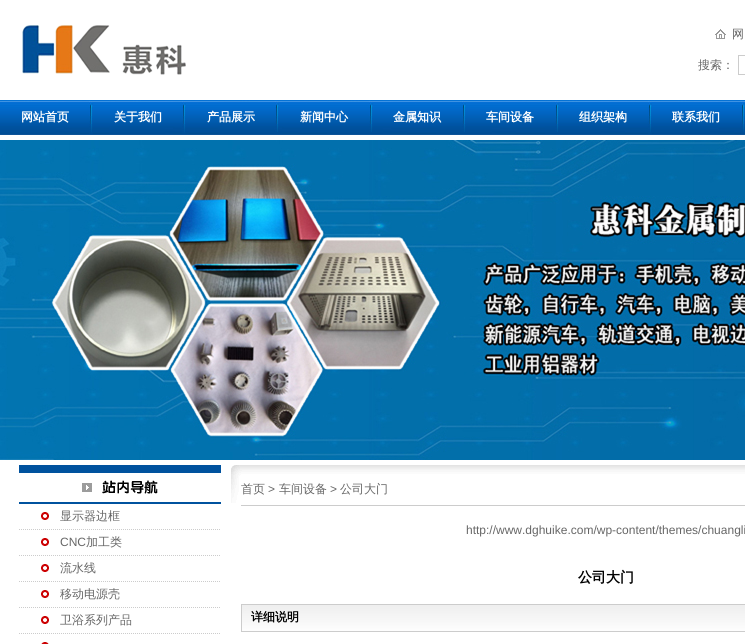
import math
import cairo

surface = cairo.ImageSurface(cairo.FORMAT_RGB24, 745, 644)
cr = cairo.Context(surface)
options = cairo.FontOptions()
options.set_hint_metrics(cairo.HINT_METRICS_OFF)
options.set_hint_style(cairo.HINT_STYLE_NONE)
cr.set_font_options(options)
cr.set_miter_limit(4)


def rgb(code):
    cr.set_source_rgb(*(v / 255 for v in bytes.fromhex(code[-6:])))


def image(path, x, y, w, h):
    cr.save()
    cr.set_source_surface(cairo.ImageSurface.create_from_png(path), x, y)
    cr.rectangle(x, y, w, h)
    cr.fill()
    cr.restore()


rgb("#ffffff")
cr.paint()
image("img/1.png", 22, 25, 164, 50)
image("img/2.png", 715, 29, 11, 10)
cr.rectangle(738.5, 55.5, 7, 19)
rgb("#cccccc")
cr.set_line_width(1)
cr.stroke()
image("img/3.png", 0, 100, 745, 35)
image("img/4.png", 89, 100, 4, 34)
image("img/4.png", 182, 100, 4, 34)
image("img/5.png", 275, 100, 4, 32)
image("img/5.png", 369, 100, 4, 32)
image("img/5.png", 462, 100, 4, 32)
image("img/5.png", 555, 100, 4, 32)
image("img/4.png", 648, 100, 4, 34)
image("img/4.png", 741, 100, 4, 34)
image("img/6.png", 0, 140, 745, 320)
rgb("#00529e")
cr.rectangle(19, 465, 202, 8)
cr.fill()
cr.rectangle(19, 502, 202, 2)
cr.fill()
image("img/7.png", 82, 480, 76, 14)
cr.new_path()
cr.move_to(19, 529.5)
cr.line_to(221, 529.5)
rgb("#cccccc")
cr.set_dash([1, 1])
cr.stroke()
image("img/8.png", 41, 512, 8, 8)
cr.new_path()
cr.move_to(19, 555.5)
cr.line_to(221, 555.5)
cr.stroke()
image("img/8.png", 41, 538, 8, 8)
cr.new_path()
cr.move_to(19, 581.5)
cr.line_to(221, 581.5)
cr.stroke()
image("img/8.png", 41, 564, 8, 8)
cr.new_path()
cr.move_to(19, 607.5)
cr.line_to(221, 607.5)
cr.stroke()
image("img/8.png", 41, 590, 8, 8)
cr.new_path()
cr.move_to(19, 633.5)
cr.line_to(221, 633.5)
cr.stroke()
image("img/8.png", 41, 616, 8, 8)
image("img/9.png", 41, 642, 8, 2)
image("img/10.png", 231, 465, 514, 38)
cr.rectangle(241, 505, 504, 1)
cr.fill()
image("img/11.png", 241, 604, 504, 28)
cr.select_font_face("WenQuanYi Zen Hei Medium")
cr.set_font_size(12)
rgb("#666666")
cr.move_to(732, 38)
cr.show_text("网")
cr.move_to(698, 69)
cr.show_text("搜索：")
cr.select_font_face("WenQuanYi Zen Hei", cairo.FONT_SLANT_NORMAL, cairo.FONT_WEIGHT_BOLD)
rgb("#ffffff")
for x, y, s in [
    (21, 121, "网站首页"),
    (114, 121, "关于我们"),
    (207, 121, "产品展示"),
    (300, 121, "新闻中心"),
    (393, 121, "金属知识"),
    (486, 121, "车间设备"),
    (579, 121, "组织架构"),
    (672, 121, "联系我们"),
]:
    cr.move_to(x, y)
    cr.show_text(s)
cr.select_font_face("WenQuanYi Zen Hei Medium")
rgb("#666666")
cr.move_to(60, 520)
cr.show_text("显示器边框")
cr.select_font_face("Liberation Sans")
cr.move_to(60, 546)
cr.show_text("CNC")
cr.select_font_face("WenQuanYi Zen Hei Medium")
for x, y, s in [
    (86, 546, "加工类"),
    (60, 572, "流水线"),
    (60, 598, "移动电源壳"),
    (60, 624, "卫浴系列产品"),
    (241, 493, "首页"),
]:
    cr.move_to(x, y)
    cr.show_text(s)
cr.select_font_face("Liberation Sans")
cr.move_to(268, 493)
cr.show_text(">")
cr.select_font_face("WenQuanYi Zen Hei Medium")
cr.move_to(279, 493)
cr.show_text("车间设备")
cr.select_font_face("Liberation Sans")
cr.move_to(330, 493)
cr.show_text(">")
cr.select_font_face("WenQuanYi Zen Hei Medium")
cr.move_to(340, 493)
cr.show_text("公司大门")
cr.select_font_face("Liberation Sans")
cr.move_to(466, 534)
cr.show_text("http://www.dghuike.com/wp-content/themes/chuangli")
cr.select_font_face("WenQuanYi Zen Hei", cairo.FONT_SLANT_NORMAL, cairo.FONT_WEIGHT_BOLD)
cr.set_font_size(14)
rgb("#000000")
cr.move_to(578, 582)
cr.show_text("公司大门")
cr.set_font_size(12)
cr.move_to(251, 621)
cr.show_text("详细说明")
surface.write_to_png("page.png")
